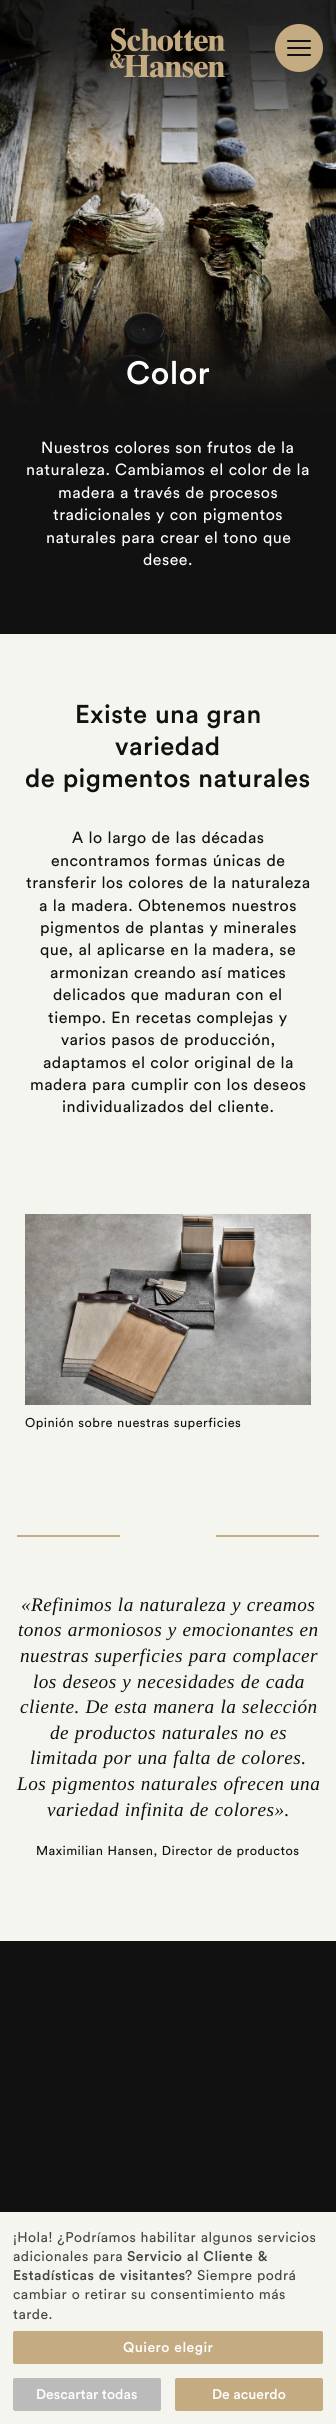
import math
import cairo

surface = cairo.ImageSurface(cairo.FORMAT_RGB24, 336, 2424)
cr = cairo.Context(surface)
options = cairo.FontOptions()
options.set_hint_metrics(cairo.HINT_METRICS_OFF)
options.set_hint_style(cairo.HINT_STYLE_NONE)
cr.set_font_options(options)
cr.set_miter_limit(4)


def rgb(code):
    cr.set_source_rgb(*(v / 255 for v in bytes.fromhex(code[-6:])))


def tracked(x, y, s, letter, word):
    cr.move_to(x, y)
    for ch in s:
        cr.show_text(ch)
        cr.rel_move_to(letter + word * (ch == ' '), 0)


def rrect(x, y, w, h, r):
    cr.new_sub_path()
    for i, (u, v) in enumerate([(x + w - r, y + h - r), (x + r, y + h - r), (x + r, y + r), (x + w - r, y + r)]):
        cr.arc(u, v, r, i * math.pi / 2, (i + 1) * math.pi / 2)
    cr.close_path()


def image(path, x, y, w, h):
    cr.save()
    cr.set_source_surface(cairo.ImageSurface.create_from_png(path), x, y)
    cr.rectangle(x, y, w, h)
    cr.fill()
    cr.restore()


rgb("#111111")
cr.paint()
image("img/2.png", 0, 0, 336, 420)
rgb("#c5ab81")
cr.arc(299, 48, 24, 0, 2 * math.pi)
cr.fill()
rgb("#111111")
rrect(287, 40, 24, 2, 1)
cr.fill()
rrect(287, 47, 24, 2, 1)
cr.fill()
rrect(287, 54, 24, 2, 1)
cr.fill()
image("img/1.png", 110, 28, 115, 50)
rgb("#f5f5f0")
cr.rectangle(0, 634, 336, 1307)
cr.fill()
image("img/3.png", 25, 1214, 286, 191)
for x, y, w, h, color in [
    (17, 1535, 103, 2, "#c5ab81"),
    (216, 1535, 103, 2, "#c5ab81"),
    (0, 2212, 336, 212, "#f5f5f0"),
]:
    rgb(color)
    cr.rectangle(x, y, w, h)
    cr.fill()
rgb("#c5ab81")
rrect(13, 2331, 310, 33, 2)
cr.fill()
rgb("#bbbbbb")
rrect(13, 2378, 148, 33, 2)
cr.fill()
rgb("#c5ab81")
rrect(175, 2378, 148, 33, 2)
cr.fill()
cr.select_font_face("Circular Medium")
cr.set_font_size(32)
rgb("#ffffff")
tracked(126, 384, "Color", 0.45, 0)
cr.select_font_face("Circular")
cr.set_font_size(16)
tracked(41, 453, "Nuestros colores son frutos de la", 0.45, 0.5)
tracked(26, 475, "naturaleza.", 0.45, 0)
tracked(115, 475, "Cambiamos el color de la", 0.45, 0.5)
tracked(58, 498, "madera a través de procesos", 0.45, 0.5)
tracked(53, 520, "tradicionales", 0.45, 0)
tracked(156, 520, "y con pigmentos", 0.45, 0.5)
tracked(46, 543, "naturales para crear el tono que", 0.45, 0.5)
tracked(143, 565, "desee.", 0.45, 0)
cr.select_font_face("Circular Medium")
cr.set_font_size(25.6)
rgb("#111111")
tracked(75, 723, "Existe una gran", 0.45, 0.5)
tracked(115, 755, "variedad", 0.45, 0)
tracked(25, 787, "de pigmentos naturales", 0.45, 0.5)
cr.select_font_face("Circular")
cr.set_font_size(16)
for x, y, s in [
    (72, 843, "A lo largo de las décadas"),
    (51, 866, "encontramos formas únicas de"),
    (26, 888, "transferir los colores de la naturaleza"),
    (39, 911, "a la madera. Obtenemos nuestros"),
    (40, 933, "pigmentos de plantas y minerales"),
    (40, 955, "que, al aplicarse en la madera, se"),
    (50, 978, "armonizan creando así matices"),
    (53, 1000, "delicados que maduran con el"),
    (48, 1023, "tiempo. En recetas complejas y"),
    (61, 1045, "varios pasos de producción,"),
    (43, 1068, "adaptamos el color original de la"),
    (30, 1090, "madera para cumplir con los deseos"),
    (62, 1112, "individualizados del cliente."),
]:
    tracked(x, y, s, 0.45, 0.5)
cr.set_font_size(12.8)
tracked(25, 1427, "Opinión sobre nuestras superficies", 0.45, 0.5)
cr.select_font_face("Liberation Serif", cairo.FONT_SLANT_ITALIC)
cr.set_font_size(19.25)
for x, y, s in [
    (21, 1611, "«Refinimos la naturaleza y creamos"),
    (18, 1636, "tonos armoniosos y emocionantes en"),
    (20, 1662, "nuestras superficies para complacer"),
    (33, 1688, "los deseos y necesidades de cada"),
    (20, 1713, "cliente. De esta manera la selección"),
    (50, 1739, "de productos naturales no es"),
    (30, 1764, "limitada por una falta de colores."),
    (17, 1790, "Los pigmentos naturales ofrecen una"),
    (47, 1816, "variedad infinita de colores»."),
]:
    tracked(x, y, s, 0.45, 0.5)
cr.select_font_face("Circular")
cr.set_font_size(12.8)
tracked(36, 1855, "Maximilian Hansen, Director de productos", 0.45, 0.5)
cr.set_font_size(14)
rgb("#444444")
tracked(13, 2242, "¡Hola! ¿Podríamos habilitar algunos servicios", 0.45, 0.5)
tracked(13, 2261, "adicionales para", 0.45, 0.5)
cr.select_font_face("Circular Medium")
tracked(127, 2261, "Servicio al Cliente &", 0.45, 0.5)
tracked(13, 2280, "Estadísticas de visitantes", 0.45, 0.5)
cr.select_font_face("Circular")
tracked(185, 2280, "? Siempre podrá", 0.45, 0.5)
tracked(13, 2299, "cambiar o retirar su consentimiento más", 0.45, 0.5)
tracked(13, 2319, "tarde.", 0.45, 0)
cr.select_font_face("Circular Medium")
rgb("#ffffff")
tracked(123, 2352, "Quiero elegir", 0.45, 0.5)
cr.move_to(36, 2399)
cr.show_text("Descartar todas")
cr.move_to(212, 2399)
cr.show_text("De acuerdo")
surface.write_to_png("page.png")
